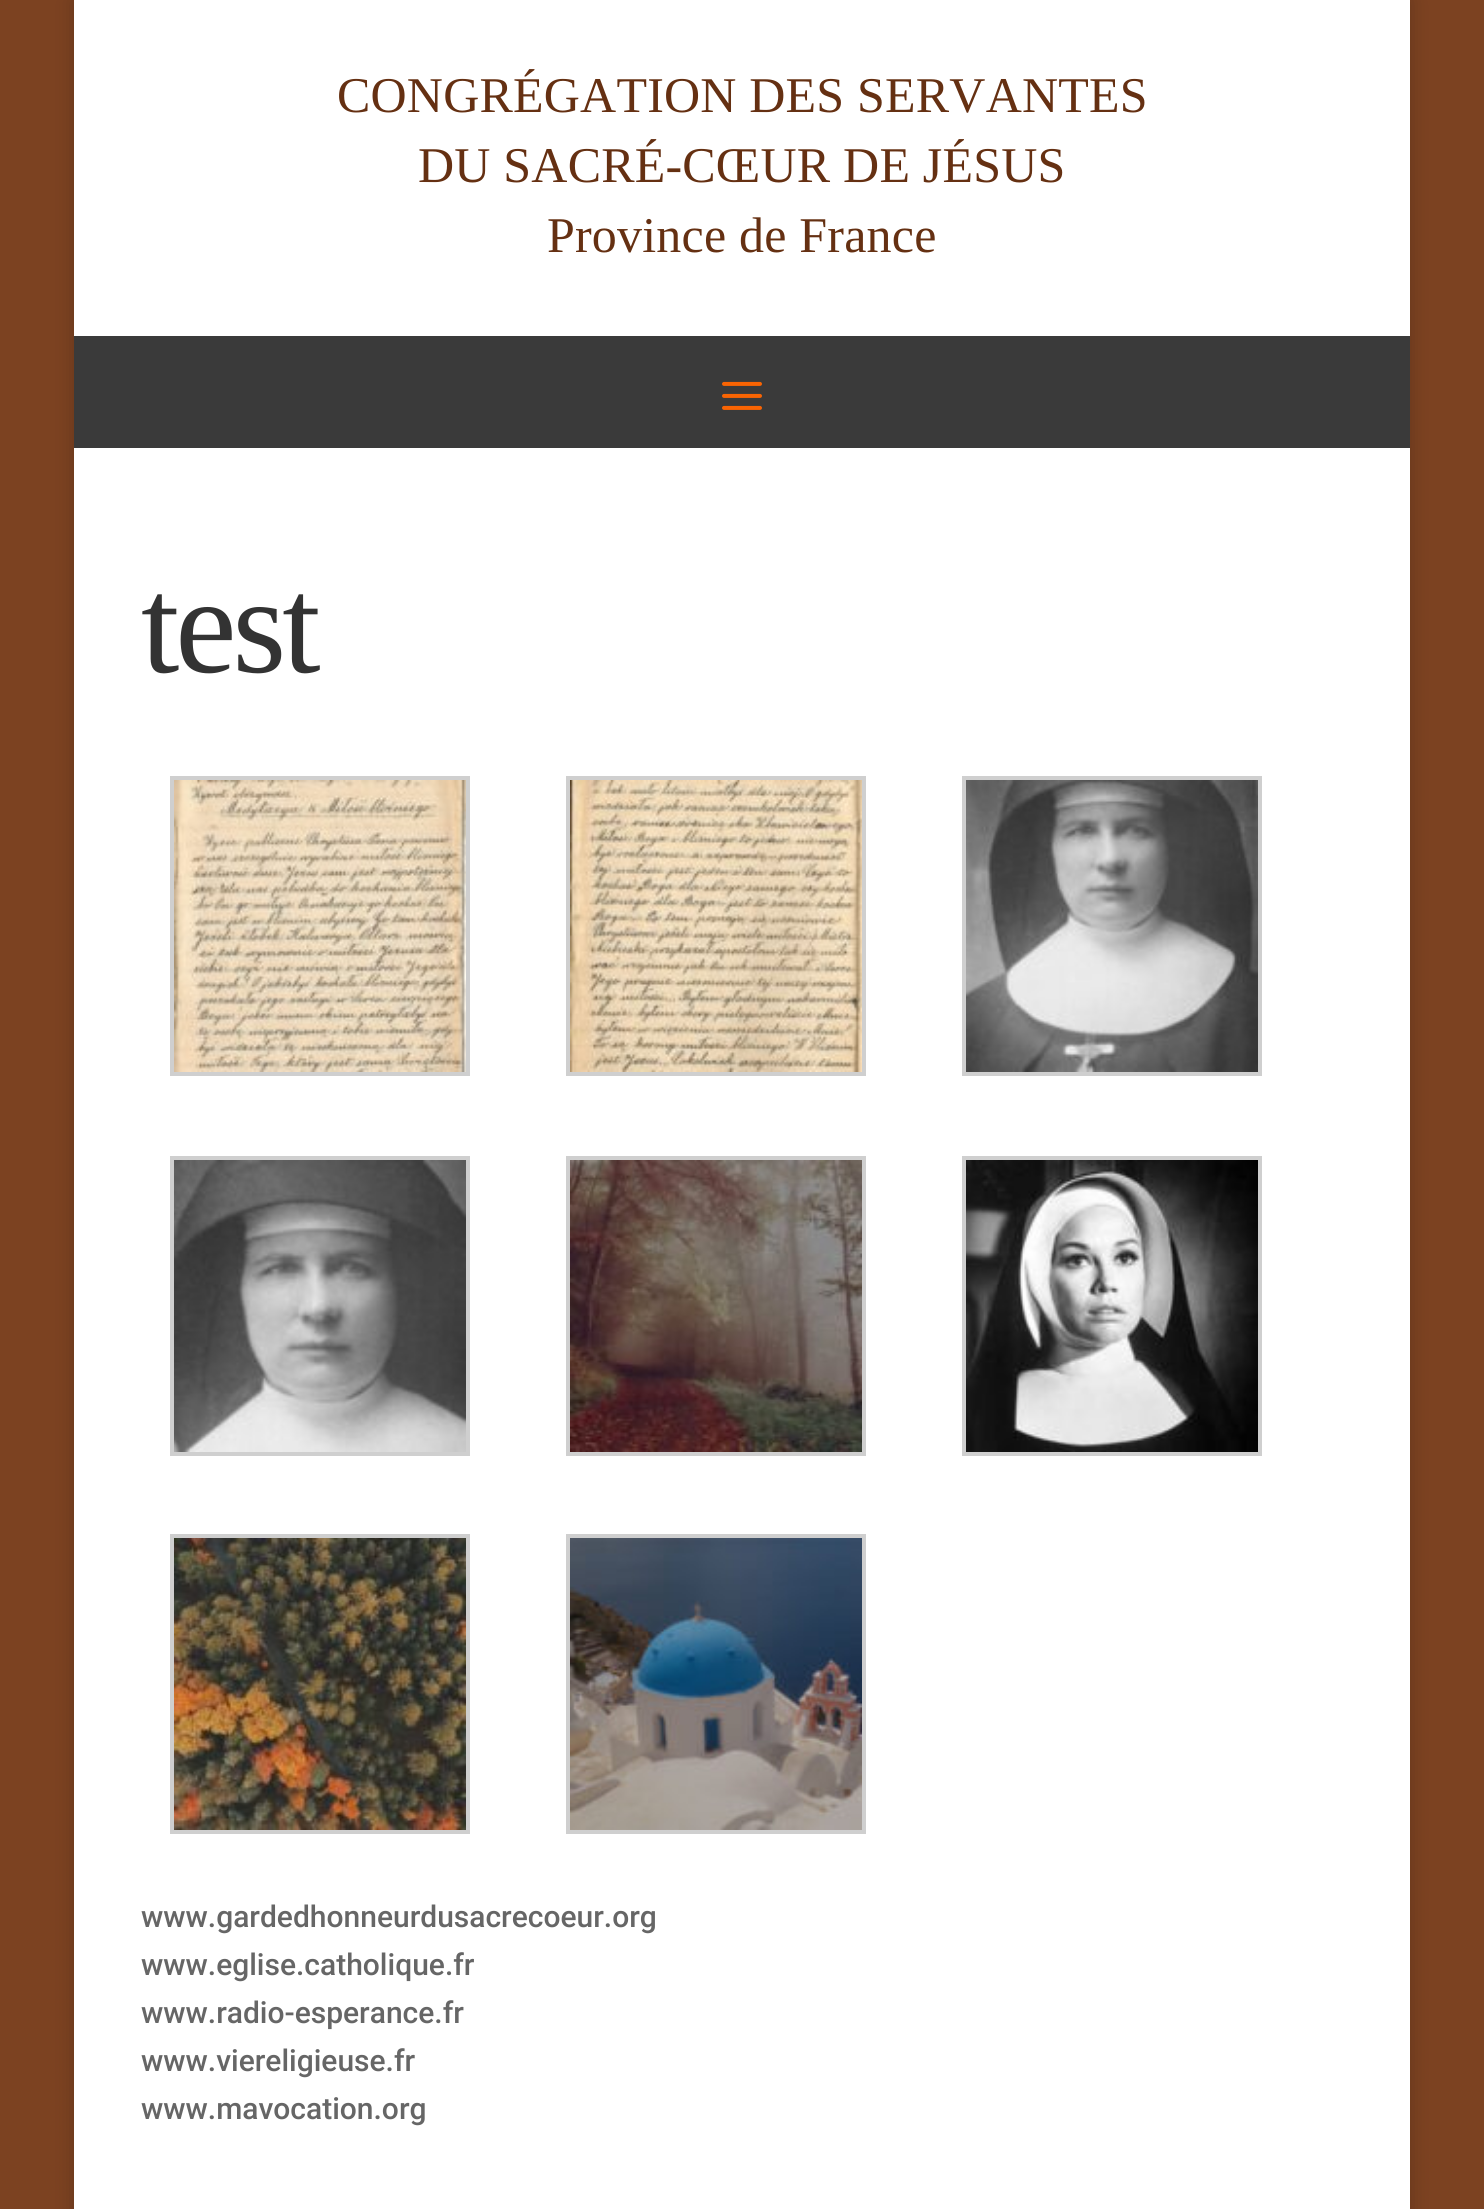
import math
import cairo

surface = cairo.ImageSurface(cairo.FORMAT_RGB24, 1484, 2209)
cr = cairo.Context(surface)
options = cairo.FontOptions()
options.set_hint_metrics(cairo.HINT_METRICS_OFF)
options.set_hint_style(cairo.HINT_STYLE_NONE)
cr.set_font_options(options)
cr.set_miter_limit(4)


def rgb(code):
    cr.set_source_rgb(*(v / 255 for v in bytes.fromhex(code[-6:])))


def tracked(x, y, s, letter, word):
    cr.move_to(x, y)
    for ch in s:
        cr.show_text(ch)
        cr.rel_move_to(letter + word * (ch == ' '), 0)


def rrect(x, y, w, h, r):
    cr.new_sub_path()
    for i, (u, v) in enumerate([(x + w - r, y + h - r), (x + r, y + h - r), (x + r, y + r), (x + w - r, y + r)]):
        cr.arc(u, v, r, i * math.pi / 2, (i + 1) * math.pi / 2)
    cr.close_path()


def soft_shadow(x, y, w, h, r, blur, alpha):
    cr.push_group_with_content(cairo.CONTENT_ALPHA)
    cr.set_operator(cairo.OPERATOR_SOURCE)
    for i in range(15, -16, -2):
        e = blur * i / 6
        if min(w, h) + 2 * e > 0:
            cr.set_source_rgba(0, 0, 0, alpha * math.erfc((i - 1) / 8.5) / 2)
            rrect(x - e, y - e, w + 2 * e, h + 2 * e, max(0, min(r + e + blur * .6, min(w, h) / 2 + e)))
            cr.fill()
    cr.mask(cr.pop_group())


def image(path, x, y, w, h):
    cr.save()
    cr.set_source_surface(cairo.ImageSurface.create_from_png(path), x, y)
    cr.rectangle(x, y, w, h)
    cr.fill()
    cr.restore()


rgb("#7c4221")
cr.paint()
rgb("#000000")
soft_shadow(74, 0, 1336, 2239, 0, 10, 0.2)
rgb("#ffffff")
cr.rectangle(74, 0, 1336, 336)
cr.fill()
rgb("#3a3a3a")
cr.rectangle(74, 336, 1336, 112)
cr.fill()
image("img/1.png", 722, 381, 40, 29)
rgb("#ffffff")
cr.rectangle(74, 448, 1336, 1761)
cr.fill()
cr.rectangle(172, 778, 296, 296)
rgb("#cfcfcf")
cr.set_line_width(4)
cr.stroke()
image("img/2.png", 174, 780, 292, 292)
cr.rectangle(568, 778, 296, 296)
cr.stroke()
image("img/3.png", 570, 780, 292, 292)
cr.rectangle(964, 778, 296, 296)
cr.stroke()
image("img/4.png", 966, 780, 292, 292)
cr.rectangle(172, 1158, 296, 296)
cr.stroke()
image("img/5.png", 174, 1160, 292, 292)
cr.rectangle(568, 1158, 296, 296)
cr.stroke()
image("img/6.png", 570, 1160, 292, 292)
cr.rectangle(964, 1158, 296, 296)
cr.stroke()
image("img/7.png", 966, 1160, 292, 292)
cr.rectangle(172, 1536, 296, 296)
cr.stroke()
image("img/8.png", 174, 1538, 292, 292)
cr.rectangle(568, 1536, 296, 296)
cr.stroke()
image("img/9.png", 570, 1538, 292, 292)
cr.select_font_face("Liberation Serif")
cr.set_font_size(50)
rgb("#653012")
for x, y, s in [
    (337, 112, "CONGRÉGATION DES SERVANTES"),
    (418, 182, "DU SACRÉ-CŒUR DE JÉSUS"),
    (547, 252, "Province de France"),
]:
    tracked(x, y, s, 0.2, 0)
cr.set_font_size(138)
rgb("#333333")
tracked(141, 672, "test", -4, 0)
cr.select_font_face("Roboto Medium")
cr.set_font_size(30)
rgb("#666666")
for x, y, s in [
    (141, 1927, "www.gardedhonneurdusacrecoeur.org"),
    (141, 1975, "www.eglise.catholique.fr"),
    (141, 2023, "www.radio-esperance.fr"),
    (141, 2071, "www.viereligieuse.fr"),
    (141, 2119, "www.mavocation.org"),
]:
    cr.move_to(x, y)
    cr.show_text(s)
surface.write_to_png("page.png")
